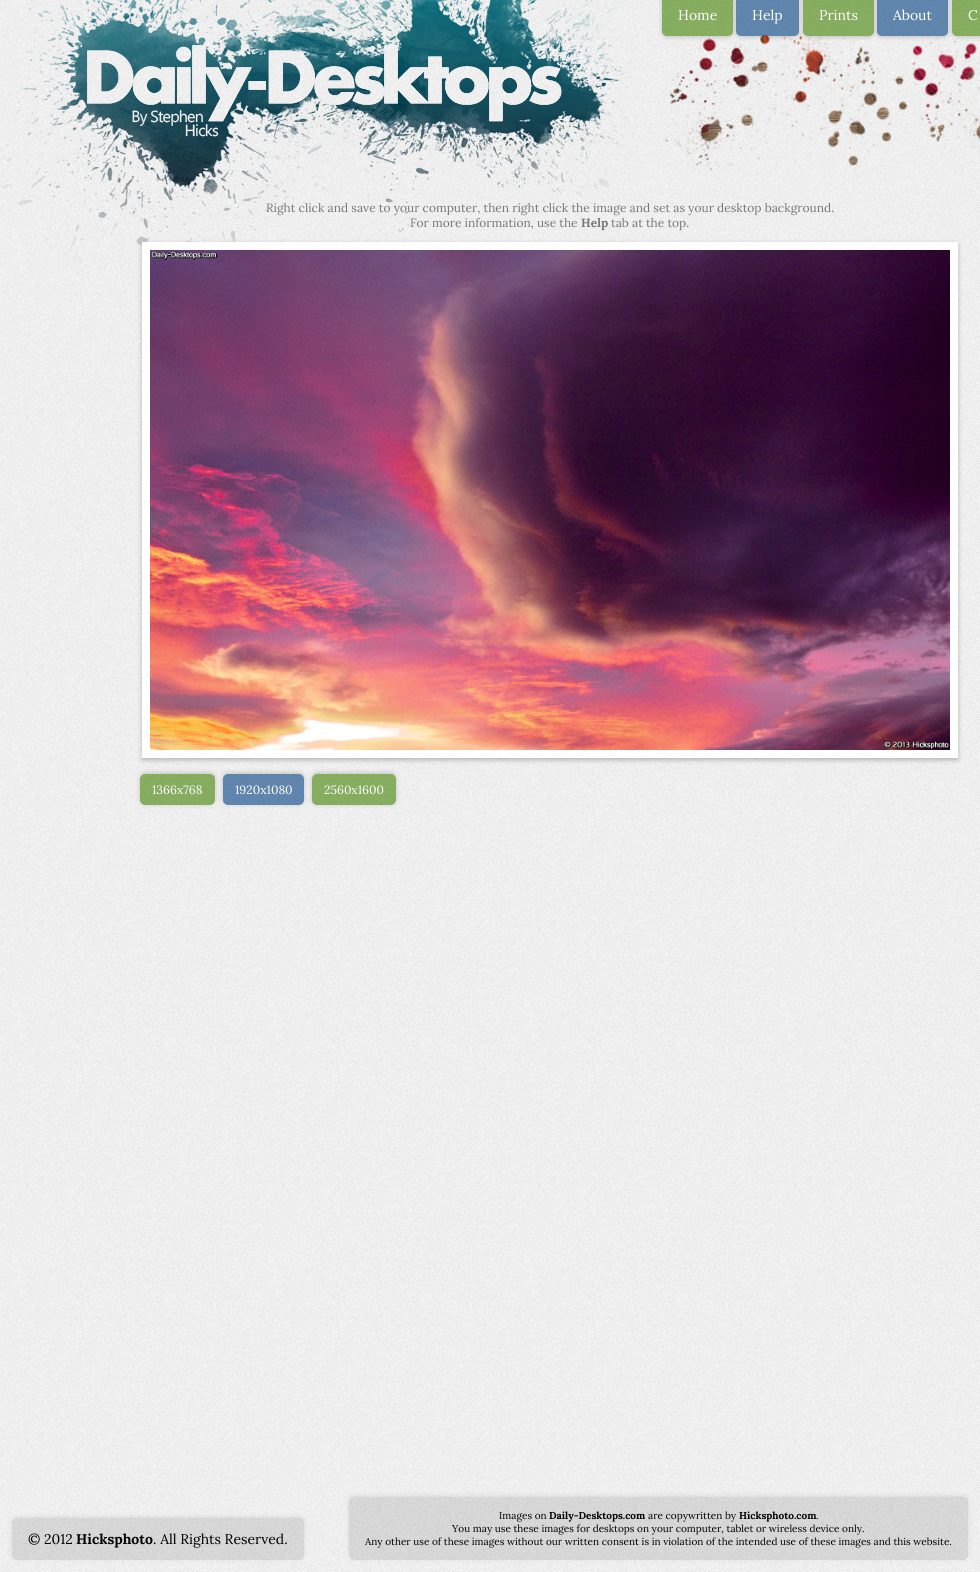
import math
import cairo

surface = cairo.ImageSurface(cairo.FORMAT_RGB24, 980, 1572)
cr = cairo.Context(surface)
options = cairo.FontOptions()
options.set_hint_metrics(cairo.HINT_METRICS_OFF)
options.set_hint_style(cairo.HINT_STYLE_NONE)
cr.set_font_options(options)
cr.set_miter_limit(4)


def rgb(code):
    cr.set_source_rgb(*(v / 255 for v in bytes.fromhex(code[-6:])))


def rrect(x, y, w, h, r):
    cr.new_sub_path()
    for i, (u, v) in enumerate([(x + w - r, y + h - r), (x + r, y + h - r), (x + r, y + r), (x + w - r, y + r)]):
        cr.arc(u, v, r, i * math.pi / 2, (i + 1) * math.pi / 2)
    cr.close_path()


def soft_shadow(x, y, w, h, r, blur, alpha):
    cr.push_group_with_content(cairo.CONTENT_ALPHA)
    cr.set_operator(cairo.OPERATOR_SOURCE)
    for i in range(15, -16, -2):
        e = blur * i / 6
        if min(w, h) + 2 * e > 0:
            cr.set_source_rgba(0, 0, 0, alpha * math.erfc((i - 1) / 8.5) / 2)
            rrect(x - e, y - e, w + 2 * e, h + 2 * e, max(0, min(r + e + blur * .6, min(w, h) / 2 + e)))
            cr.fill()
    cr.mask(cr.pop_group())


def image(path, x, y, w, h):
    cr.save()
    cr.set_source_surface(cairo.ImageSurface.create_from_png(path), x, y)
    cr.rectangle(x, y, w, h)
    cr.fill()
    cr.restore()


rgb("#ffffff")
cr.paint()
image("img/1.png", 0, 0, 980, 1572)
image("img/2.png", 2, 0, 636, 280)
image("img/3.png", 663, 35, 317, 148)
cr.save()
cr.set_fill_rule(cairo.FILL_RULE_EVEN_ODD)
cr.new_path()
cr.move_to(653, 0)
cr.line_to(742, 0)
cr.line_to(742, 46)
cr.line_to(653, 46)
cr.close_path()
cr.move_to(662, -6)
cr.line_to(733, -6)
cr.line_to(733, 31)
cr.curve_to(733, 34, 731, 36, 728, 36)
cr.line_to(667, 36)
cr.curve_to(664, 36, 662, 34, 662, 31)
cr.close_path()
cr.clip()
rgb("#000000")
soft_shadow(662, -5, 71, 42, 5, 2.5, 0.2)
cr.restore()
cr.set_source_rgba(0.251, 0.502, 0, 0.6)
cr.new_path()
cr.move_to(662, -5)
cr.line_to(733, -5)
cr.line_to(733, 31)
cr.curve_to(733, 34, 731, 36, 728, 36)
cr.line_to(667, 36)
cr.curve_to(664, 36, 662, 34, 662, 31)
cr.close_path()
cr.fill()
cr.save()
cr.set_fill_rule(cairo.FILL_RULE_EVEN_ODD)
cr.new_path()
cr.move_to(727, 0)
cr.line_to(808, 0)
cr.line_to(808, 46)
cr.line_to(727, 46)
cr.close_path()
cr.move_to(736, -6)
cr.line_to(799, -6)
cr.line_to(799, 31)
cr.curve_to(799, 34, 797, 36, 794, 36)
cr.line_to(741, 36)
cr.curve_to(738, 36, 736, 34, 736, 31)
cr.close_path()
cr.clip()
rgb("#000000")
soft_shadow(736, -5, 63, 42, 5, 2.5, 0.2)
cr.restore()
cr.set_source_rgba(0, 0.251, 0.502, 0.6)
cr.new_path()
cr.move_to(736, -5)
cr.line_to(799, -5)
cr.line_to(799, 31)
cr.curve_to(799, 34, 797, 36, 794, 36)
cr.line_to(741, 36)
cr.curve_to(738, 36, 736, 34, 736, 31)
cr.close_path()
cr.fill()
cr.save()
cr.set_fill_rule(cairo.FILL_RULE_EVEN_ODD)
cr.new_path()
cr.move_to(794, 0)
cr.line_to(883, 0)
cr.line_to(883, 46)
cr.line_to(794, 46)
cr.close_path()
cr.move_to(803, -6)
cr.line_to(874, -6)
cr.line_to(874, 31)
cr.curve_to(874, 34, 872, 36, 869, 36)
cr.line_to(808, 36)
cr.curve_to(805, 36, 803, 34, 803, 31)
cr.close_path()
cr.clip()
rgb("#000000")
soft_shadow(803, -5, 71, 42, 5, 2.5, 0.2)
cr.restore()
cr.set_source_rgba(0.251, 0.502, 0, 0.6)
cr.new_path()
cr.move_to(803, -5)
cr.line_to(874, -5)
cr.line_to(874, 31)
cr.curve_to(874, 34, 872, 36, 869, 36)
cr.line_to(808, 36)
cr.curve_to(805, 36, 803, 34, 803, 31)
cr.close_path()
cr.fill()
cr.save()
cr.set_fill_rule(cairo.FILL_RULE_EVEN_ODD)
cr.new_path()
cr.move_to(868, 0)
cr.line_to(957, 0)
cr.line_to(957, 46)
cr.line_to(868, 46)
cr.close_path()
cr.move_to(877, -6)
cr.line_to(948, -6)
cr.line_to(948, 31)
cr.curve_to(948, 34, 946, 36, 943, 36)
cr.line_to(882, 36)
cr.curve_to(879, 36, 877, 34, 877, 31)
cr.close_path()
cr.clip()
rgb("#000000")
soft_shadow(877, -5, 71, 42, 5, 2.5, 0.2)
cr.restore()
cr.set_source_rgba(0, 0.251, 0.502, 0.6)
cr.new_path()
cr.move_to(877, -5)
cr.line_to(948, -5)
cr.line_to(948, 31)
cr.curve_to(948, 34, 946, 36, 943, 36)
cr.line_to(882, 36)
cr.curve_to(879, 36, 877, 34, 877, 31)
cr.close_path()
cr.fill()
cr.save()
cr.set_fill_rule(cairo.FILL_RULE_EVEN_ODD)
cr.new_path()
cr.move_to(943, 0)
cr.line_to(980, 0)
cr.line_to(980, 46)
cr.line_to(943, 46)
cr.close_path()
cr.move_to(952, -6)
cr.line_to(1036, -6)
cr.line_to(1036, 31)
cr.curve_to(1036, 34, 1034, 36, 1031, 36)
cr.line_to(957, 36)
cr.curve_to(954, 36, 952, 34, 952, 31)
cr.close_path()
cr.clip()
rgb("#000000")
soft_shadow(952, -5, 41, 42, 5, 2.5, 0.2)
cr.restore()
cr.set_source_rgba(0.251, 0.502, 0, 0.6)
cr.new_path()
cr.move_to(952, -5)
cr.line_to(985, -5)
cr.line_to(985, 31)
cr.curve_to(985, 34, 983, 36, 980, 36)
cr.line_to(957, 36)
cr.curve_to(954, 36, 952, 34, 952, 31)
cr.close_path()
cr.fill()
rgb("#000000")
soft_shadow(142, 244, 816, 516, 0, 2.5, 0.25)
cr.rectangle(146, 246, 808, 508)
rgb("#ffffff")
cr.set_line_width(8)
cr.stroke()
image("img/4.png", 150, 250, 800, 500)
cr.save()
cr.set_fill_rule(cairo.FILL_RULE_EVEN_ODD)
cr.new_path()
cr.move_to(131, 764)
cr.line_to(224, 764)
cr.line_to(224, 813)
cr.line_to(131, 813)
cr.close_path()
cr.move_to(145, 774)
cr.line_to(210, 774)
cr.curve_to(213, 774, 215, 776, 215, 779)
cr.line_to(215, 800)
cr.curve_to(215, 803, 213, 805, 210, 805)
cr.line_to(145, 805)
cr.curve_to(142, 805, 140, 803, 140, 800)
cr.line_to(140, 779)
cr.curve_to(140, 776, 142, 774, 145, 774)
cr.close_path()
cr.clip()
rgb("#000000")
soft_shadow(140, 773, 75, 31, 5, 2.5, 0.2)
cr.restore()
cr.set_source_rgba(0.251, 0.502, 0, 0.6)
rrect(140, 774, 75, 31, 5)
cr.fill()
cr.save()
cr.set_fill_rule(cairo.FILL_RULE_EVEN_ODD)
cr.new_path()
cr.move_to(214, 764)
cr.line_to(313, 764)
cr.line_to(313, 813)
cr.line_to(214, 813)
cr.close_path()
cr.move_to(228, 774)
cr.line_to(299, 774)
cr.curve_to(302, 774, 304, 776, 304, 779)
cr.line_to(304, 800)
cr.curve_to(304, 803, 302, 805, 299, 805)
cr.line_to(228, 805)
cr.curve_to(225, 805, 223, 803, 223, 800)
cr.line_to(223, 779)
cr.curve_to(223, 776, 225, 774, 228, 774)
cr.close_path()
cr.clip()
rgb("#000000")
soft_shadow(223, 773, 81, 31, 5, 2.5, 0.2)
cr.restore()
cr.set_source_rgba(0, 0.251, 0.502, 0.6)
rrect(223, 774, 81, 31, 5)
cr.fill()
cr.save()
cr.set_fill_rule(cairo.FILL_RULE_EVEN_ODD)
cr.new_path()
cr.move_to(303, 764)
cr.line_to(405, 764)
cr.line_to(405, 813)
cr.line_to(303, 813)
cr.close_path()
cr.move_to(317, 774)
cr.line_to(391, 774)
cr.curve_to(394, 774, 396, 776, 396, 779)
cr.line_to(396, 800)
cr.curve_to(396, 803, 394, 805, 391, 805)
cr.line_to(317, 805)
cr.curve_to(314, 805, 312, 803, 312, 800)
cr.line_to(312, 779)
cr.curve_to(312, 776, 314, 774, 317, 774)
cr.close_path()
cr.clip()
rgb("#000000")
soft_shadow(312, 773, 84, 31, 5, 2.5, 0.2)
cr.restore()
cr.set_source_rgba(0.251, 0.502, 0, 0.6)
rrect(312, 774, 84, 31, 5)
cr.fill()
rgb("#000000")
soft_shadow(12, 1517, 292, 42, 5, 2.5, 0.1)
image("img/5.png", 12, 1518, 292, 42)
soft_shadow(349, 1496, 619, 63, 5, 2.5, 0.1)
image("img/6.png", 349, 1497, 619, 63)
cr.select_font_face("Lora")
cr.set_font_size(14)
rgb("#ffffff")
for x, y, s in [
    (678, 20, "Home"),
    (752, 20, "Help"),
    (819, 20, "Prints"),
    (893, 20, "About"),
    (968, 20, "C"),
]:
    cr.move_to(x, y)
    cr.show_text(s)
cr.set_font_size(12)
rgb("#777777")
cr.move_to(266, 212)
cr.show_text("Right click and save to your computer, then right click the image and set as your desktop background.")
cr.move_to(410, 227)
cr.show_text("For more information, use the")
cr.select_font_face("Lora", cairo.FONT_SLANT_NORMAL, cairo.FONT_WEIGHT_BOLD)
cr.move_to(581, 227)
cr.show_text("Help")
cr.select_font_face("Lora")
cr.move_to(611, 227)
cr.show_text("tab at the top.")
rgb("#ffffff")
for x, y, s in [
    (152, 794, "1366x768"),
    (235, 794, "1920x1080"),
    (324, 794, "2560x1600"),
]:
    cr.move_to(x, y)
    cr.show_text(s)
cr.set_font_size(14)
rgb("#000000")
cr.move_to(28, 1544)
cr.show_text("© 2012")
cr.select_font_face("Lora", cairo.FONT_SLANT_NORMAL, cairo.FONT_WEIGHT_BOLD)
cr.move_to(76, 1544)
cr.show_text("Hicksphoto")
cr.select_font_face("Lora")
cr.move_to(153, 1544)
cr.show_text(". All Rights Reserved.")
cr.set_font_size(10)
cr.move_to(499, 1519)
cr.show_text("Images on")
cr.select_font_face("Lora", cairo.FONT_SLANT_NORMAL, cairo.FONT_WEIGHT_BOLD)
cr.move_to(549, 1519)
cr.show_text("Daily-Desktops.com")
cr.select_font_face("Lora")
cr.move_to(648, 1519)
cr.show_text("are copywritten by")
cr.select_font_face("Lora", cairo.FONT_SLANT_NORMAL, cairo.FONT_WEIGHT_BOLD)
cr.move_to(739, 1519)
cr.show_text("Hicksphoto.com")
cr.select_font_face("Lora")
for x, y, s in [
    (816, 1519, "."),
    (452, 1532, "You may use these images for desktops on your computer, tablet or wireless device only."),
    (365, 1545, "Any other use of these images without our written consent is in violation of the intended use of these images and this website."),
]:
    cr.move_to(x, y)
    cr.show_text(s)
surface.write_to_png("page.png")
